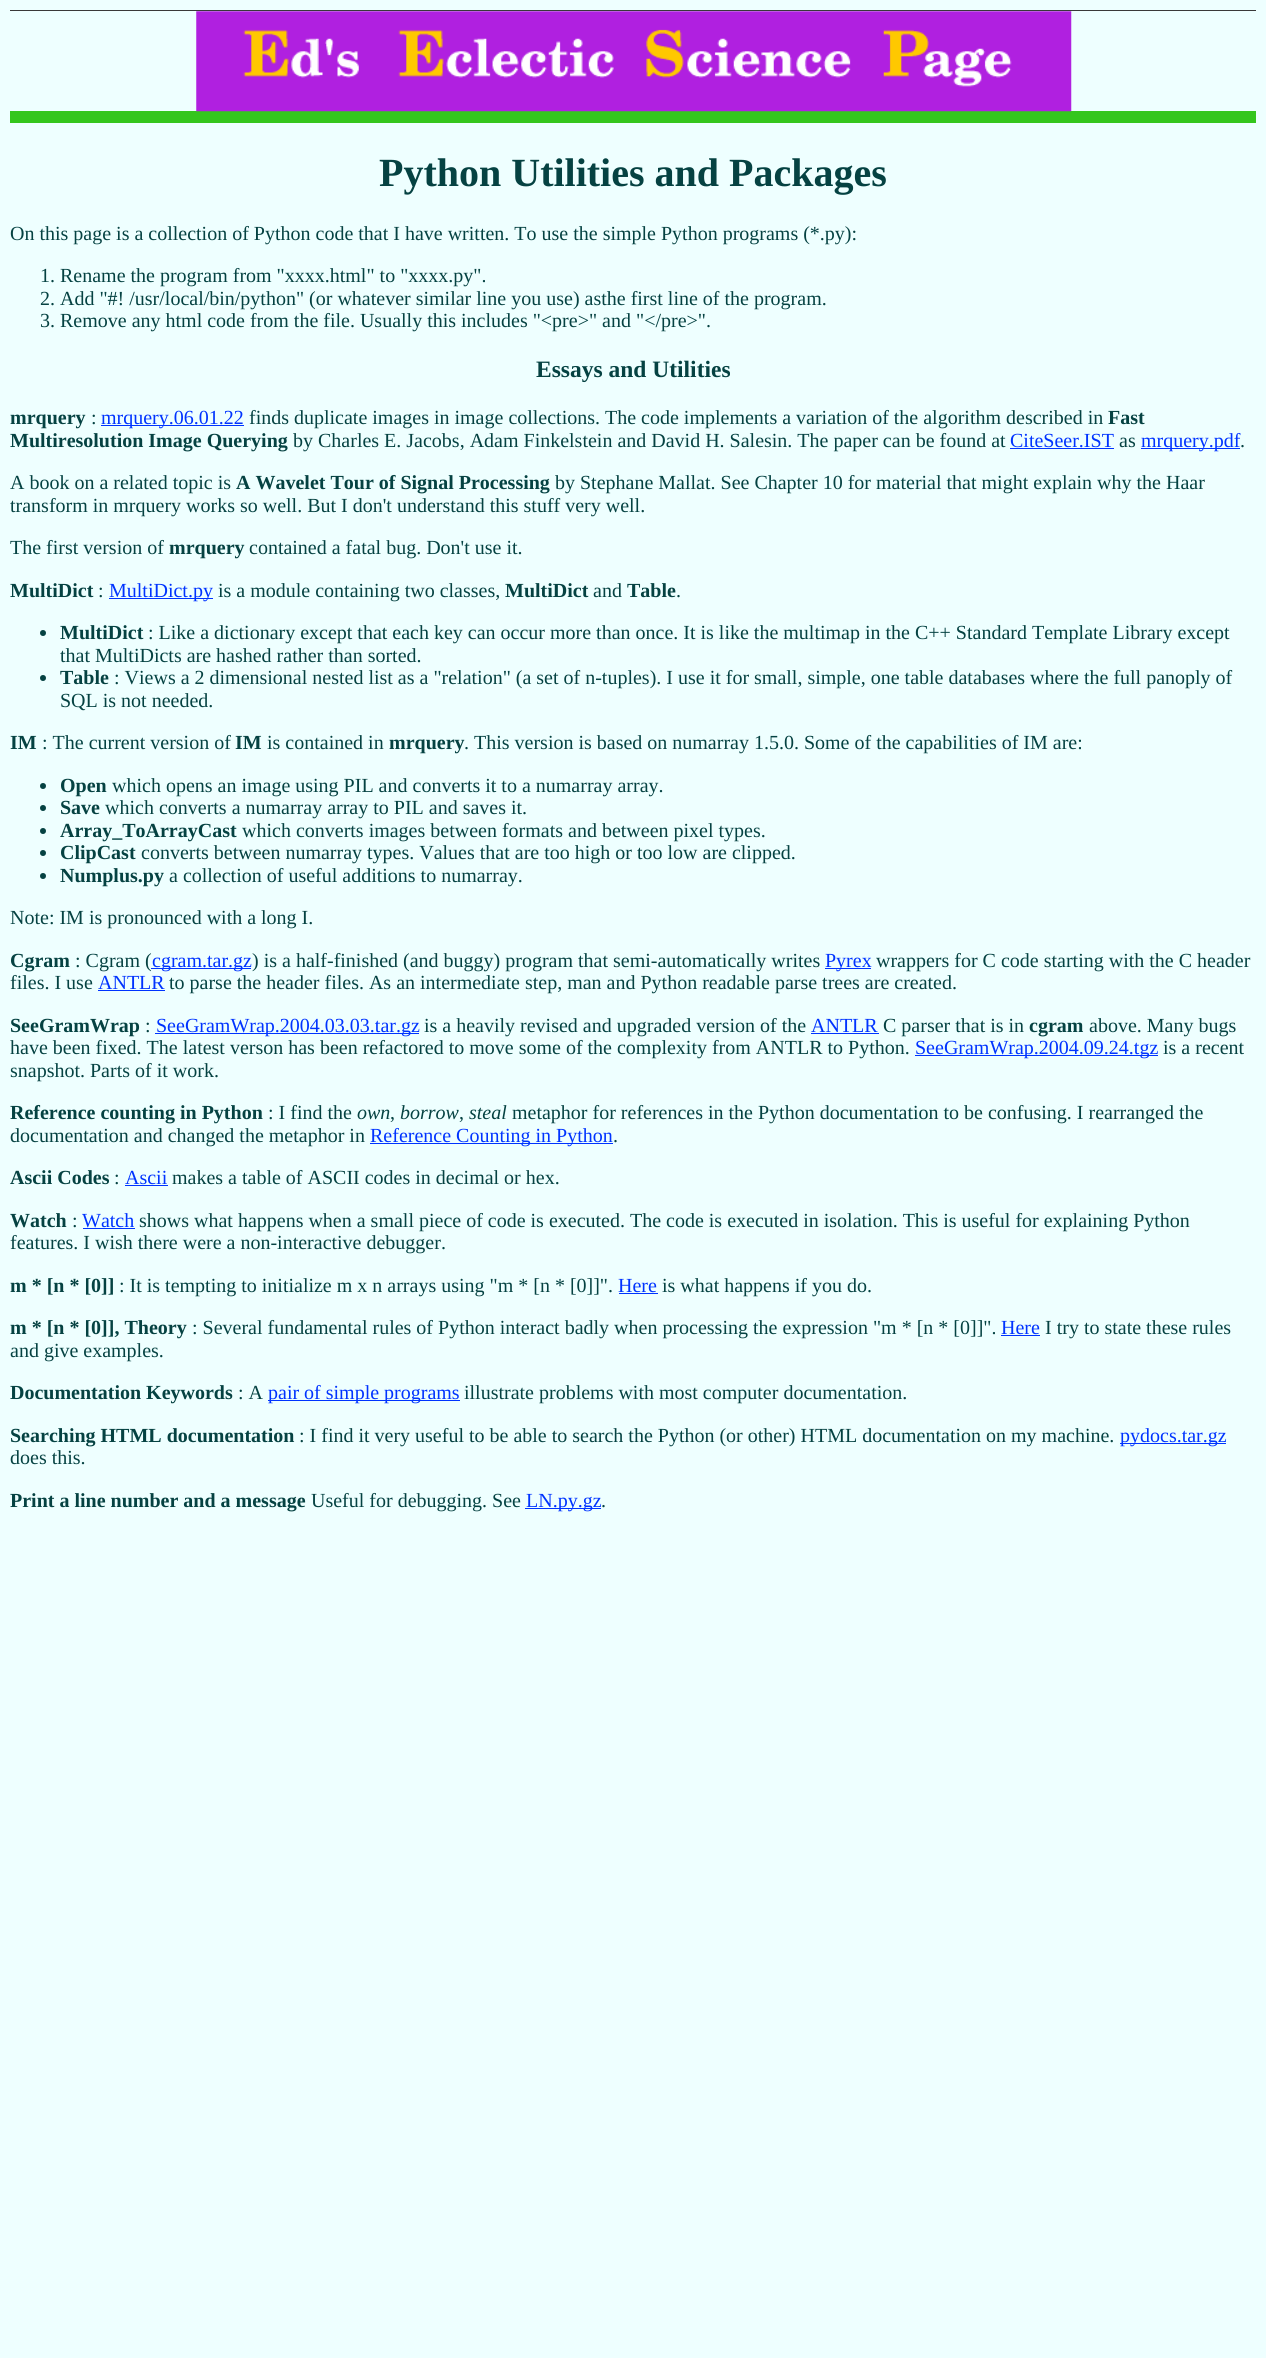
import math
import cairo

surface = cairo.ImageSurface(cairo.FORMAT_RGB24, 1266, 2358)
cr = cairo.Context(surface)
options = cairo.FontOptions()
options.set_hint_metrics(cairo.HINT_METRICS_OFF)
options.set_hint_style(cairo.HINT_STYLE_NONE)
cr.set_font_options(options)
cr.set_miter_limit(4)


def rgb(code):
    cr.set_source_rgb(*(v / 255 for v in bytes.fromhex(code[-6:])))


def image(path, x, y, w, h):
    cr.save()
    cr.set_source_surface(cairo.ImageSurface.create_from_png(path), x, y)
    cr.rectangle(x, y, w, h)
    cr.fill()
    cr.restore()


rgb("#eeffff")
cr.paint()
rgb("#393939")
cr.rectangle(10, 10, 1246, 1)
cr.fill()
rgb("#34c61d")
cr.rectangle(10, 111, 1246, 12)
cr.fill()
image("img/1.png", 196, 11, 876, 101)
for x, y, w, h, color in [
    (101, 425, 143, 1, "#0033ff"),
    (1010, 448, 104, 1, "#0033ff"),
    (1141, 448, 99, 1, "#0033ff"),
    (109, 598, 104, 1, "#0033ff"),
]:
    rgb(color)
    cr.rectangle(x, y, w, h)
    cr.fill()
rgb("#054242")
cr.arc(43, 633, 3, 0, 2 * math.pi)
cr.fill()
cr.arc(43, 678, 3, 0, 2 * math.pi)
cr.fill()
cr.arc(43, 786, 3, 0, 2 * math.pi)
cr.fill()
cr.arc(43, 808, 3, 0, 2 * math.pi)
cr.fill()
cr.arc(43, 831, 3, 0, 2 * math.pi)
cr.fill()
cr.arc(43, 853, 3, 0, 2 * math.pi)
cr.fill()
cr.arc(43, 876, 3, 0, 2 * math.pi)
cr.fill()
for x, y, w, h, color in [
    (151, 968, 100, 1, "#0033ff"),
    (825, 968, 46, 1, "#0033ff"),
    (98, 990, 67, 1, "#0033ff"),
    (155, 1033, 264, 1, "#0033ff"),
    (811, 1033, 68, 1, "#0033ff"),
    (915, 1055, 243, 1, "#0033ff"),
    (370, 1143, 243, 1, "#0033ff"),
    (125, 1185, 43, 1, "#0033ff"),
    (83, 1228, 52, 1, "#0033ff"),
    (619, 1293, 39, 1, "#0033ff"),
    (1001, 1335, 39, 1, "#0033ff"),
    (268, 1400, 192, 1, "#0033ff"),
    (1120, 1443, 106, 1, "#0033ff"),
    (525, 1508, 76, 1, "#0033ff"),
]:
    rgb(color)
    cr.rectangle(x, y, w, h)
    cr.fill()
cr.select_font_face("Liberation Serif", cairo.FONT_SLANT_NORMAL, cairo.FONT_WEIGHT_BOLD)
cr.set_font_size(40)
rgb("#054242")
cr.move_to(379, 186)
cr.show_text("Python Utilities and Packages")
cr.select_font_face("Liberation Serif")
cr.set_font_size(20)
for x, y, s in [
    (10, 240, "On this page is a collection of Python code that I have written. To use the simple Python programs (*.py):"),
    (40, 282, "1. Rename the program from \"xxxx.html\" to \"xxxx.py\"."),
    (40, 305, "2. Add \"#! /usr/local/bin/python\" (or whatever similar line you use) asthe first line of the program."),
    (40, 327, "3. Remove any html code from the file. Usually this includes \"<pre>\" and \"</pre>\"."),
]:
    cr.move_to(x, y)
    cr.show_text(s)
cr.select_font_face("Liberation Serif", cairo.FONT_SLANT_NORMAL, cairo.FONT_WEIGHT_BOLD)
cr.set_font_size(23.5)
cr.move_to(536, 377)
cr.show_text("Essays and Utilities")
cr.set_font_size(20)
cr.move_to(10, 424)
cr.show_text("mrquery")
cr.select_font_face("Liberation Serif")
cr.move_to(91, 424)
cr.show_text(":")
rgb("#0033ff")
cr.move_to(101, 424)
cr.show_text("mrquery.06.01.22")
rgb("#054242")
cr.move_to(249, 424)
cr.show_text("finds duplicate images in image collections. The code implements a variation of the algorithm described in")
cr.select_font_face("Liberation Serif", cairo.FONT_SLANT_NORMAL, cairo.FONT_WEIGHT_BOLD)
cr.move_to(1108, 424)
cr.show_text("Fast")
cr.move_to(10, 447)
cr.show_text("Multiresolution Image Querying")
cr.select_font_face("Liberation Serif")
cr.move_to(293, 447)
cr.show_text("by Charles E. Jacobs, Adam Finkelstein and David H. Salesin. The paper can be found at")
rgb("#0033ff")
cr.move_to(1010, 447)
cr.show_text("CiteSeer.IST")
rgb("#054242")
cr.move_to(1119, 447)
cr.show_text("as")
rgb("#0033ff")
cr.move_to(1141, 447)
cr.show_text("mrquery.pdf")
rgb("#054242")
cr.move_to(1240, 447)
cr.show_text(".")
cr.move_to(10, 489)
cr.show_text("A book on a related topic is")
cr.select_font_face("Liberation Serif", cairo.FONT_SLANT_NORMAL, cairo.FONT_WEIGHT_BOLD)
cr.move_to(236, 489)
cr.show_text("A Wavelet Tour of Signal Processing")
cr.select_font_face("Liberation Serif")
for x, y, s in [
    (555, 489, "by Stephane Mallat. See Chapter 10 for material that might explain why the Haar"),
    (10, 512, "transform in mrquery works so well. But I don't understand this stuff very well."),
    (10, 554, "The first version of"),
]:
    cr.move_to(x, y)
    cr.show_text(s)
cr.select_font_face("Liberation Serif", cairo.FONT_SLANT_NORMAL, cairo.FONT_WEIGHT_BOLD)
cr.move_to(169, 554)
cr.show_text("mrquery")
cr.select_font_face("Liberation Serif")
cr.move_to(249, 554)
cr.show_text("contained a fatal bug. Don't use it.")
cr.select_font_face("Liberation Serif", cairo.FONT_SLANT_NORMAL, cairo.FONT_WEIGHT_BOLD)
cr.move_to(10, 597)
cr.show_text("MultiDict")
cr.select_font_face("Liberation Serif")
cr.move_to(98, 597)
cr.show_text(":")
rgb("#0033ff")
cr.move_to(109, 597)
cr.show_text("MultiDict.py")
rgb("#054242")
cr.move_to(218, 597)
cr.show_text("is a module containing two classes,")
cr.select_font_face("Liberation Serif", cairo.FONT_SLANT_NORMAL, cairo.FONT_WEIGHT_BOLD)
cr.move_to(505, 597)
cr.show_text("MultiDict")
cr.select_font_face("Liberation Serif")
cr.move_to(593, 597)
cr.show_text("and")
cr.select_font_face("Liberation Serif", cairo.FONT_SLANT_NORMAL, cairo.FONT_WEIGHT_BOLD)
cr.move_to(627, 597)
cr.show_text("Table")
cr.select_font_face("Liberation Serif")
cr.move_to(676, 597)
cr.show_text(".")
cr.select_font_face("Liberation Serif", cairo.FONT_SLANT_NORMAL, cairo.FONT_WEIGHT_BOLD)
cr.move_to(60, 639)
cr.show_text("MultiDict")
cr.select_font_face("Liberation Serif")
cr.move_to(148, 639)
cr.show_text(": Like a dictionary except that each key can occur more than once. It is like the multimap in the C++ Standard Template Library except")
cr.move_to(60, 662)
cr.show_text("that MultiDicts are hashed rather than sorted.")
cr.select_font_face("Liberation Serif", cairo.FONT_SLANT_NORMAL, cairo.FONT_WEIGHT_BOLD)
cr.move_to(60, 684)
cr.show_text("Table")
cr.select_font_face("Liberation Serif")
cr.move_to(114, 684)
cr.show_text(": Views a 2 dimensional nested list as a \"relation\" (a set of n-tuples). I use it for small, simple, one table databases where the full panoply of")
cr.move_to(60, 707)
cr.show_text("SQL is not needed.")
cr.select_font_face("Liberation Serif", cairo.FONT_SLANT_NORMAL, cairo.FONT_WEIGHT_BOLD)
cr.move_to(10, 749)
cr.show_text("IM")
cr.select_font_face("Liberation Serif")
cr.move_to(42, 749)
cr.show_text(": The current version of")
cr.select_font_face("Liberation Serif", cairo.FONT_SLANT_NORMAL, cairo.FONT_WEIGHT_BOLD)
cr.move_to(235, 749)
cr.show_text("IM")
cr.select_font_face("Liberation Serif")
cr.move_to(267, 749)
cr.show_text("is contained in")
cr.select_font_face("Liberation Serif", cairo.FONT_SLANT_NORMAL, cairo.FONT_WEIGHT_BOLD)
cr.move_to(389, 749)
cr.show_text("mrquery")
cr.select_font_face("Liberation Serif")
cr.move_to(464, 749)
cr.show_text(". This version is based on numarray 1.5.0. Some of the capabilities of IM are:")
cr.select_font_face("Liberation Serif", cairo.FONT_SLANT_NORMAL, cairo.FONT_WEIGHT_BOLD)
cr.move_to(60, 792)
cr.show_text("Open")
cr.select_font_face("Liberation Serif")
cr.move_to(112, 792)
cr.show_text("which opens an image using PIL and converts it to a numarray array.")
cr.select_font_face("Liberation Serif", cairo.FONT_SLANT_NORMAL, cairo.FONT_WEIGHT_BOLD)
cr.move_to(60, 814)
cr.show_text("Save")
cr.select_font_face("Liberation Serif")
cr.move_to(105, 814)
cr.show_text("which converts a numarray array to PIL and saves it.")
cr.select_font_face("Liberation Serif", cairo.FONT_SLANT_NORMAL, cairo.FONT_WEIGHT_BOLD)
cr.move_to(60, 837)
cr.show_text("Array_ToArrayCast")
cr.select_font_face("Liberation Serif")
cr.move_to(242, 837)
cr.show_text("which converts images between formats and between pixel types.")
cr.select_font_face("Liberation Serif", cairo.FONT_SLANT_NORMAL, cairo.FONT_WEIGHT_BOLD)
cr.move_to(60, 859)
cr.show_text("ClipCast")
cr.select_font_face("Liberation Serif")
cr.move_to(141, 859)
cr.show_text("converts between numarray types. Values that are too high or too low are clipped.")
cr.select_font_face("Liberation Serif", cairo.FONT_SLANT_NORMAL, cairo.FONT_WEIGHT_BOLD)
cr.move_to(60, 882)
cr.show_text("Numplus.py")
cr.select_font_face("Liberation Serif")
cr.move_to(169, 882)
cr.show_text("a collection of useful additions to numarray.")
cr.move_to(10, 924)
cr.show_text("Note: IM is pronounced with a long I.")
cr.select_font_face("Liberation Serif", cairo.FONT_SLANT_NORMAL, cairo.FONT_WEIGHT_BOLD)
cr.move_to(10, 967)
cr.show_text("Cgram")
cr.select_font_face("Liberation Serif")
cr.move_to(75, 967)
cr.show_text(": Cgram (")
rgb("#0033ff")
cr.move_to(152, 967)
cr.show_text("cgram.tar.gz")
rgb("#054242")
cr.move_to(252, 967)
cr.show_text(") is a half-finished (and buggy) program that semi-automatically writes")
rgb("#0033ff")
cr.move_to(825, 967)
cr.show_text("Pyrex")
rgb("#054242")
cr.move_to(876, 967)
cr.show_text("wrappers for C code starting with the C header")
cr.move_to(10, 989)
cr.show_text("files. I use")
rgb("#0033ff")
cr.move_to(98, 989)
cr.show_text("ANTLR")
rgb("#054242")
cr.move_to(169, 989)
cr.show_text("to parse the header files. As an intermediate step, man and Python readable parse trees are created.")
cr.select_font_face("Liberation Serif", cairo.FONT_SLANT_NORMAL, cairo.FONT_WEIGHT_BOLD)
cr.move_to(10, 1032)
cr.show_text("SeeGramWrap")
cr.select_font_face("Liberation Serif")
cr.move_to(145, 1032)
cr.show_text(":")
rgb("#0033ff")
cr.move_to(156, 1032)
cr.show_text("SeeGramWrap.2004.03.03.tar.gz")
rgb("#054242")
cr.move_to(424, 1032)
cr.show_text("is a heavily revised and upgraded version of the")
rgb("#0033ff")
cr.move_to(811, 1032)
cr.show_text("ANTLR")
rgb("#054242")
cr.move_to(883, 1032)
cr.show_text("C parser that is in")
cr.select_font_face("Liberation Serif", cairo.FONT_SLANT_NORMAL, cairo.FONT_WEIGHT_BOLD)
cr.move_to(1029, 1032)
cr.show_text("cgram")
cr.select_font_face("Liberation Serif")
cr.move_to(1089, 1032)
cr.show_text("above. Many bugs")
cr.move_to(10, 1054)
cr.show_text("have been fixed. The latest verson has been refactored to move some of the complexity from ANTLR to Python.")
rgb("#0033ff")
cr.move_to(915, 1054)
cr.show_text("SeeGramWrap.2004.09.24.tgz")
rgb("#054242")
cr.move_to(1163, 1054)
cr.show_text("is a recent")
cr.move_to(10, 1077)
cr.show_text("snapshot. Parts of it work.")
cr.select_font_face("Liberation Serif", cairo.FONT_SLANT_NORMAL, cairo.FONT_WEIGHT_BOLD)
cr.move_to(10, 1119)
cr.show_text("Reference counting in Python")
cr.select_font_face("Liberation Serif")
cr.move_to(268, 1119)
cr.show_text(": I find the")
cr.select_font_face("Liberation Serif", cairo.FONT_SLANT_ITALIC)
cr.move_to(357, 1119)
cr.show_text("own")
cr.select_font_face("Liberation Serif")
cr.move_to(390, 1119)
cr.show_text(",")
cr.select_font_face("Liberation Serif", cairo.FONT_SLANT_ITALIC)
cr.move_to(400, 1119)
cr.show_text("borrow")
cr.select_font_face("Liberation Serif")
cr.move_to(459, 1119)
cr.show_text(",")
cr.select_font_face("Liberation Serif", cairo.FONT_SLANT_ITALIC)
cr.move_to(469, 1119)
cr.show_text("steal")
cr.select_font_face("Liberation Serif")
cr.move_to(512, 1119)
cr.show_text("metaphor for references in the Python documentation to be confusing. I rearranged the")
cr.move_to(10, 1142)
cr.show_text("documentation and changed the metaphor in")
rgb("#0033ff")
cr.move_to(370, 1142)
cr.show_text("Reference Counting in Python")
rgb("#054242")
cr.move_to(613, 1142)
cr.show_text(".")
cr.select_font_face("Liberation Serif", cairo.FONT_SLANT_NORMAL, cairo.FONT_WEIGHT_BOLD)
cr.move_to(10, 1184)
cr.show_text("Ascii Codes")
cr.select_font_face("Liberation Serif")
cr.move_to(114, 1184)
cr.show_text(":")
rgb("#0033ff")
cr.move_to(125, 1184)
cr.show_text("Ascii")
rgb("#054242")
cr.move_to(172, 1184)
cr.show_text("makes a table of ASCII codes in decimal or hex.")
cr.select_font_face("Liberation Serif", cairo.FONT_SLANT_NORMAL, cairo.FONT_WEIGHT_BOLD)
cr.move_to(10, 1227)
cr.show_text("Watch")
cr.select_font_face("Liberation Serif")
cr.move_to(72, 1227)
cr.show_text(":")
rgb("#0033ff")
cr.move_to(82, 1227)
cr.show_text("Watch")
rgb("#054242")
cr.move_to(139, 1227)
cr.show_text("shows what happens when a small piece of code is executed. The code is executed in isolation. This is useful for explaining Python")
cr.move_to(10, 1249)
cr.show_text("features. I wish there were a non-interactive debugger.")
cr.select_font_face("Liberation Serif", cairo.FONT_SLANT_NORMAL, cairo.FONT_WEIGHT_BOLD)
cr.move_to(10, 1292)
cr.show_text("m * [n * [0]]")
cr.select_font_face("Liberation Serif")
cr.move_to(119, 1292)
cr.show_text(": It is tempting to initialize m x n arrays using \"m * [n * [0]]\".")
rgb("#0033ff")
cr.move_to(618, 1292)
cr.show_text("Here")
rgb("#054242")
cr.move_to(662, 1292)
cr.show_text("is what happens if you do.")
cr.select_font_face("Liberation Serif", cairo.FONT_SLANT_NORMAL, cairo.FONT_WEIGHT_BOLD)
cr.move_to(10, 1334)
cr.show_text("m * [n * [0]], Theory")
cr.select_font_face("Liberation Serif")
cr.move_to(192, 1334)
cr.show_text(": Several fundamental rules of Python interact badly when processing the expression \"m * [n * [0]]\".")
rgb("#0033ff")
cr.move_to(1001, 1334)
cr.show_text("Here")
rgb("#054242")
cr.move_to(1045, 1334)
cr.show_text("I try to state these rules")
cr.move_to(10, 1357)
cr.show_text("and give examples.")
cr.select_font_face("Liberation Serif", cairo.FONT_SLANT_NORMAL, cairo.FONT_WEIGHT_BOLD)
cr.move_to(10, 1399)
cr.show_text("Documentation Keywords")
cr.select_font_face("Liberation Serif")
cr.move_to(238, 1399)
cr.show_text(": A")
rgb("#0033ff")
cr.move_to(268, 1399)
cr.show_text("pair of simple programs")
rgb("#054242")
cr.move_to(464, 1399)
cr.show_text("illustrate problems with most computer documentation.")
cr.select_font_face("Liberation Serif", cairo.FONT_SLANT_NORMAL, cairo.FONT_WEIGHT_BOLD)
cr.move_to(10, 1442)
cr.show_text("Searching HTML documentation")
cr.select_font_face("Liberation Serif")
cr.move_to(299, 1442)
cr.show_text(": I find it very useful to be able to search the Python (or other) HTML documentation on my machine.")
rgb("#0033ff")
cr.move_to(1120, 1442)
cr.show_text("pydocs.tar.gz")
rgb("#054242")
cr.move_to(10, 1464)
cr.show_text("does this.")
cr.select_font_face("Liberation Serif", cairo.FONT_SLANT_NORMAL, cairo.FONT_WEIGHT_BOLD)
cr.move_to(10, 1507)
cr.show_text("Print a line number and a message")
cr.select_font_face("Liberation Serif")
cr.move_to(311, 1507)
cr.show_text("Useful for debugging. See")
rgb("#0033ff")
cr.move_to(526, 1507)
cr.show_text("LN.py.gz")
rgb("#054242")
cr.move_to(601, 1507)
cr.show_text(".")
surface.write_to_png("page.png")
